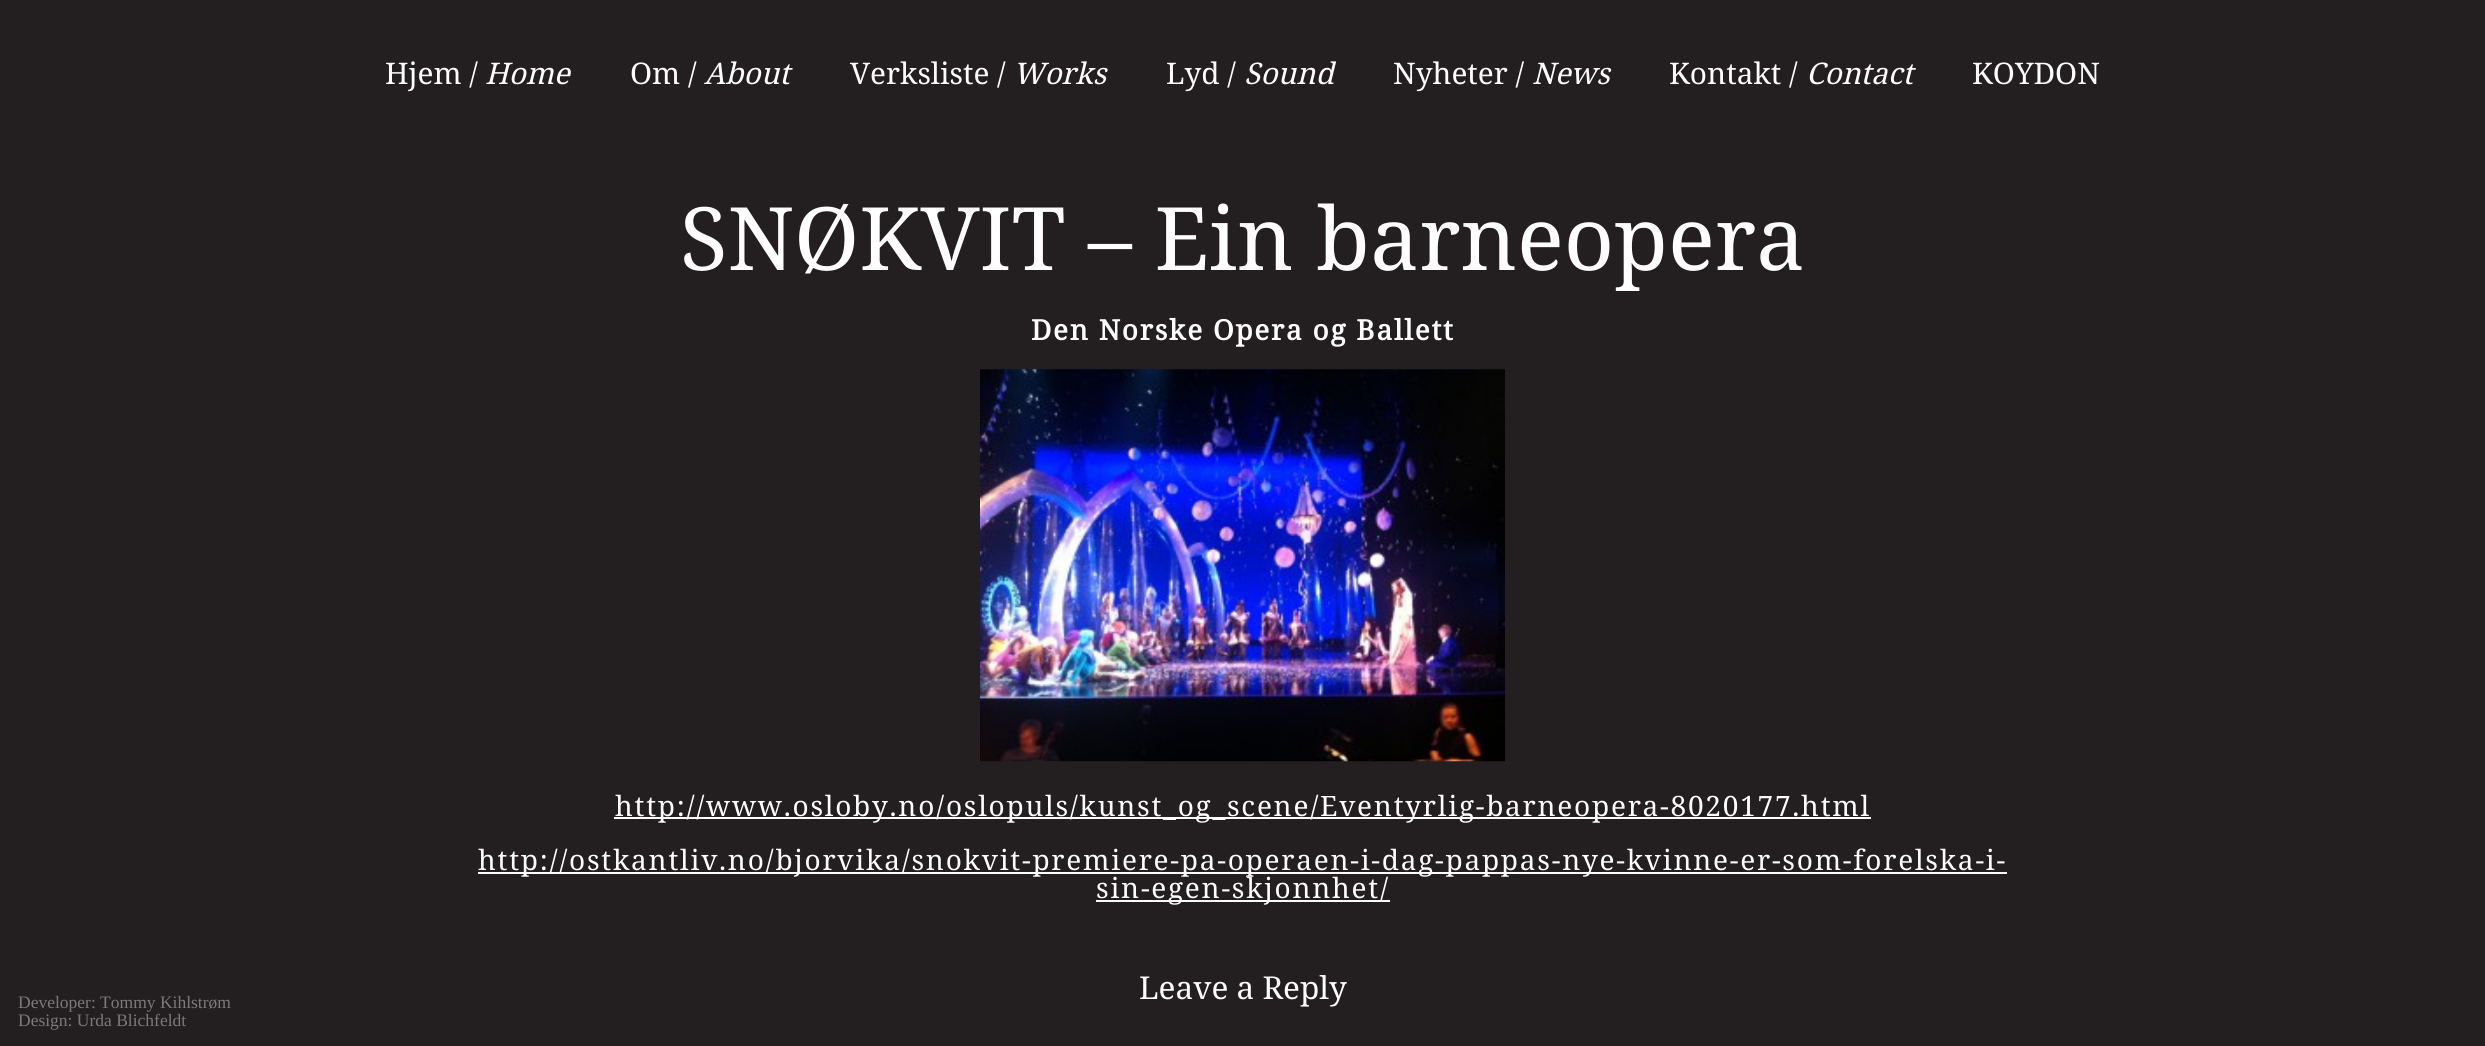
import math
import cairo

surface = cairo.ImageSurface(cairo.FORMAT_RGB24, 2485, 1046)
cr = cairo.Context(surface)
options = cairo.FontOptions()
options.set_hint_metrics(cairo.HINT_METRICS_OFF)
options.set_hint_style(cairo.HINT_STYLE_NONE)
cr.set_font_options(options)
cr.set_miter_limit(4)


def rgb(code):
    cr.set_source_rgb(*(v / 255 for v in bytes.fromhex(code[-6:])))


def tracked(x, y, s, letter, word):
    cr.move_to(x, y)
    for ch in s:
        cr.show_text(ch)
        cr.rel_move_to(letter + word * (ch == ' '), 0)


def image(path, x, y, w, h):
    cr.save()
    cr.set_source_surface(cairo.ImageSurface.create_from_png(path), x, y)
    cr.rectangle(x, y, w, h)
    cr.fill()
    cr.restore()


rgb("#231f20")
cr.paint()
image("img/1.png", 980, 369, 525, 393)
for x, y, w, h, color in [
    (614, 817, 1257, 2, "#ffffff"),
    (478, 872, 1529, 2, "#ffffff"),
    (1096, 900, 294, 2, "#ffffff"),
]:
    rgb(color)
    cr.rectangle(x, y, w, h)
    cr.fill()
cr.select_font_face("Noto Serif")
cr.set_font_size(29.75)
cr.move_to(385, 84)
cr.show_text("Hjem /")
cr.select_font_face("Noto Serif", cairo.FONT_SLANT_ITALIC)
cr.move_to(485, 84)
cr.show_text("Home")
cr.select_font_face("Noto Serif")
cr.move_to(630, 84)
cr.show_text("Om /")
cr.select_font_face("Noto Serif", cairo.FONT_SLANT_ITALIC)
cr.move_to(704, 84)
cr.show_text("About")
cr.select_font_face("Noto Serif")
cr.move_to(850, 84)
cr.show_text("Verksliste /")
cr.select_font_face("Noto Serif", cairo.FONT_SLANT_ITALIC)
cr.move_to(1013, 84)
cr.show_text("Works")
cr.select_font_face("Noto Serif")
cr.move_to(1166, 84)
cr.show_text("Lyd /")
cr.select_font_face("Noto Serif", cairo.FONT_SLANT_ITALIC)
cr.move_to(1244, 84)
cr.show_text("Sound")
cr.select_font_face("Noto Serif")
cr.move_to(1393, 84)
cr.show_text("Nyheter /")
cr.select_font_face("Noto Serif", cairo.FONT_SLANT_ITALIC)
cr.move_to(1532, 84)
cr.show_text("News")
cr.select_font_face("Noto Serif")
cr.move_to(1669, 84)
cr.show_text("Kontakt /")
cr.select_font_face("Noto Serif", cairo.FONT_SLANT_ITALIC)
cr.move_to(1806, 84)
cr.show_text("Contact")
cr.select_font_face("Noto Serif")
cr.move_to(1972, 84)
cr.show_text("KOYDON")
cr.set_font_size(87.5)
cr.move_to(680, 270)
cr.show_text("SNØKVIT – Ein barneopera")
cr.select_font_face("Noto Serif", cairo.FONT_SLANT_NORMAL, cairo.FONT_WEIGHT_BOLD)
cr.set_font_size(28)
tracked(1031, 340, "Den Norske Opera og Ballett", 1.75, 0)
cr.select_font_face("Noto Serif")
for x, y, s in [
    (615, 816, "http://www.osloby.no/oslopuls/kunst_og_scene/Eventyrlig-barneopera-8020177.html"),
    (478, 870, "http://ostkantliv.no/bjorvika/snokvit-premiere-pa-operaen-i-dag-pappas-nye-kvinne-er-som-forelska-i-"),
    (1096, 898, "sin-egen-skjonnhet/"),
]:
    tracked(x, y, s, 1.75, 0)
cr.set_font_size(31.5)
cr.move_to(1139, 999)
cr.show_text("Leave a Reply")
cr.select_font_face("Liberation Serif")
cr.set_font_size(17.5)
rgb("#7b7979")
cr.move_to(18, 1008)
cr.show_text("Developer: Tommy Kihlstrøm")
cr.move_to(18, 1026)
cr.show_text("Design: Urda Blichfeldt")
surface.write_to_png("page.png")
